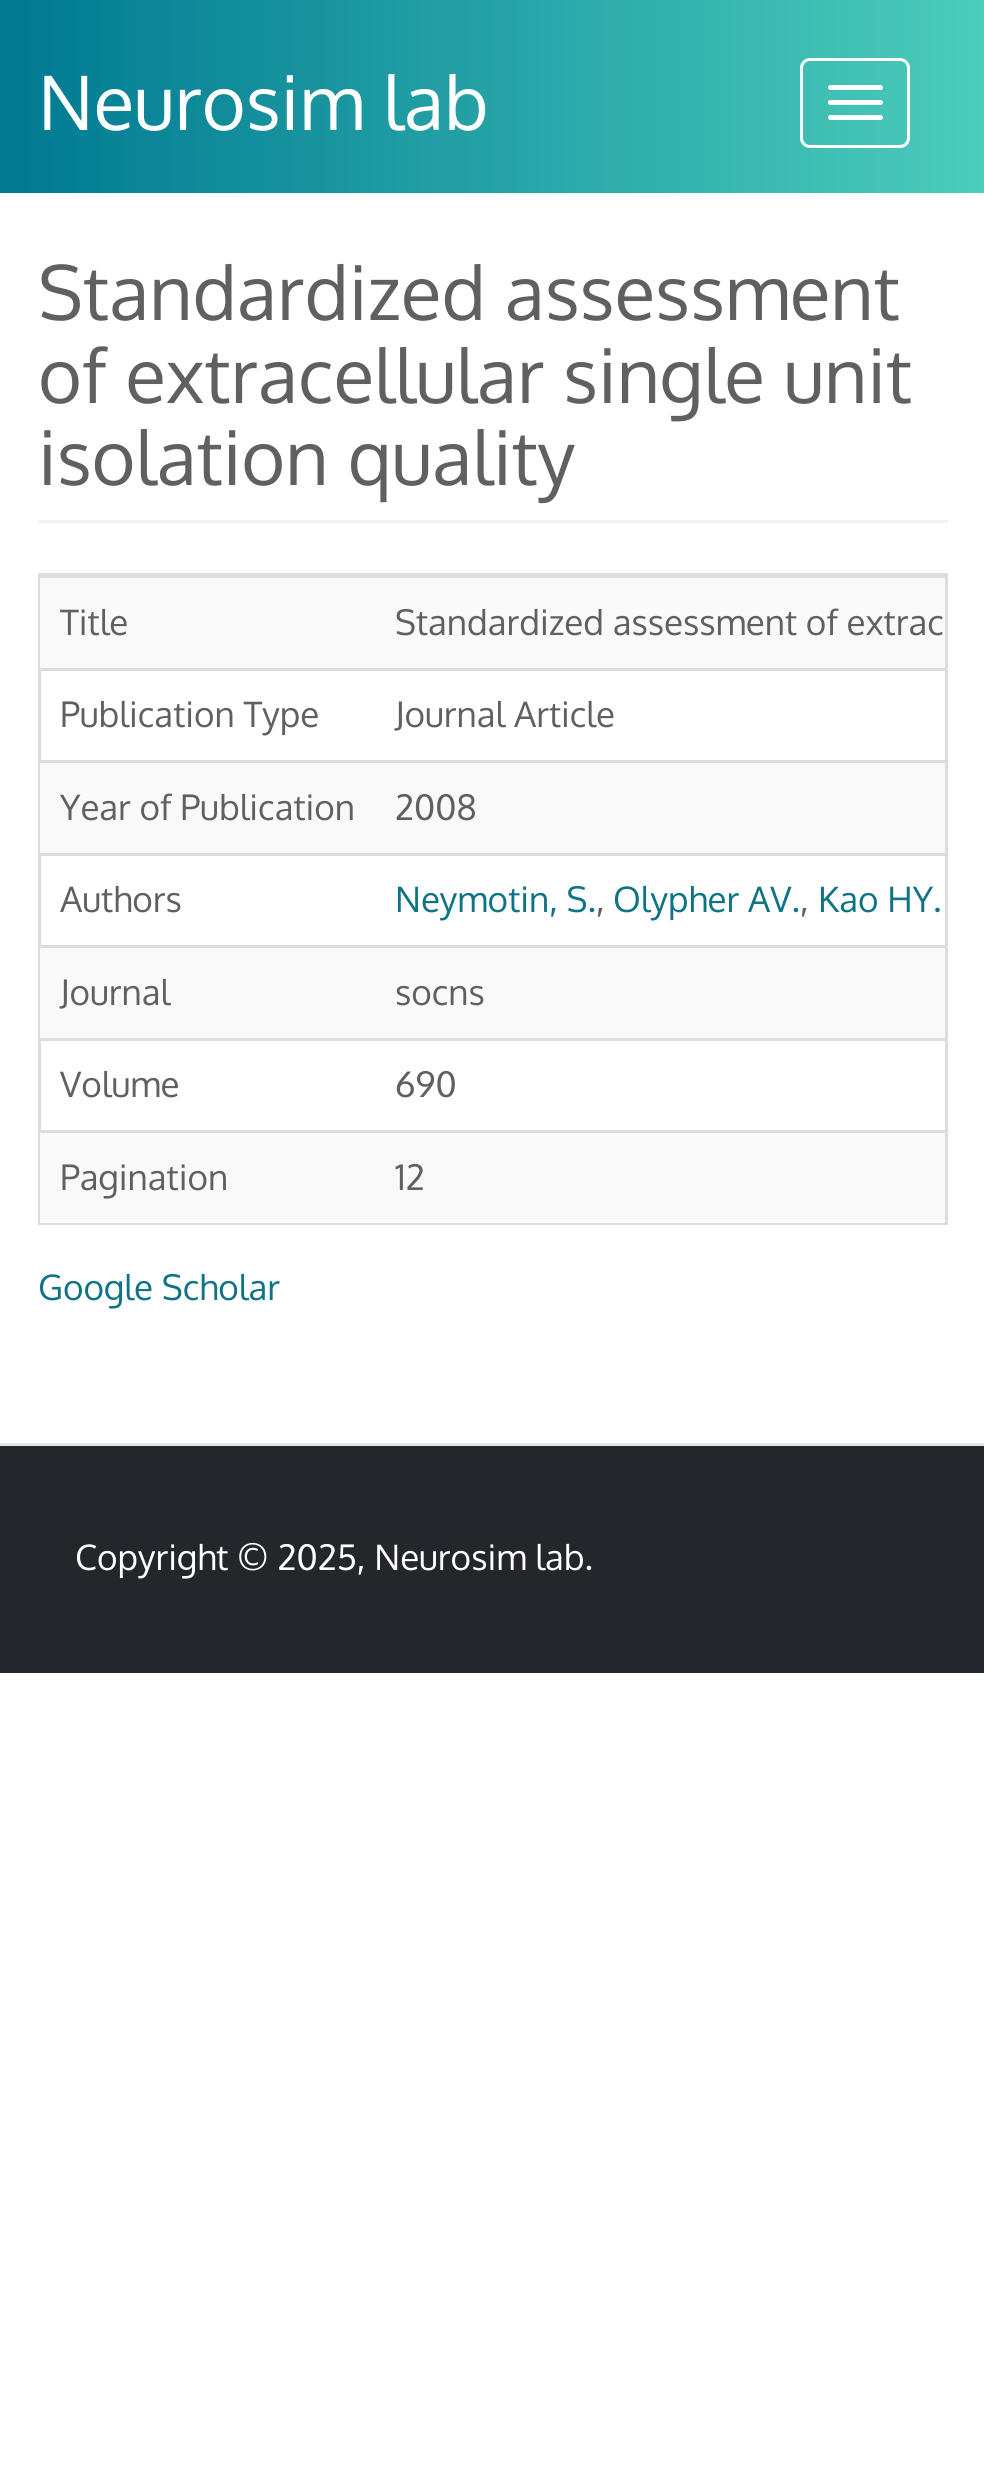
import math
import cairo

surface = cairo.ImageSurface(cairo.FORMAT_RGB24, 984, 2486)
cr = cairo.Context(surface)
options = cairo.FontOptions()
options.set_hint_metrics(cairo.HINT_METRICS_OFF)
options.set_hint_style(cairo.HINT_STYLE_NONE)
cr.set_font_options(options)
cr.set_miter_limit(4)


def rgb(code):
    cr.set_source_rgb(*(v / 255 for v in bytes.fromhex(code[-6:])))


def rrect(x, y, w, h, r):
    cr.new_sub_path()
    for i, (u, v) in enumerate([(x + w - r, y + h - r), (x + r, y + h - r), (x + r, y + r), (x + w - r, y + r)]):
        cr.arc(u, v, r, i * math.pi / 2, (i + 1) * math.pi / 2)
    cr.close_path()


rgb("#ffffff")
cr.paint()
gradient = cairo.LinearGradient(0, 96, 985, 96)
gradient.add_color_stop_rgba(0, 0, 0.475, 0.569, 1)
gradient.add_color_stop_rgba(1, 0.298, 0.8, 0.733, 1)
cr.set_source(gradient)
cr.rectangle(0, 0, 984, 193)
cr.fill()
rrect(801.5, 59.5, 107, 87, 8.5)
rgb("#ffffff")
cr.set_line_width(3)
cr.stroke()
rrect(828, 85, 55, 5, 2.5)
cr.fill()
rrect(828, 100, 55, 5, 2.5)
cr.fill()
rrect(828, 115, 55, 5, 2.5)
cr.fill()
rgb("#f2f2f2")
cr.rectangle(38, 520, 910, 3)
cr.fill()
cr.rectangle(39.5, 574.5, 907, 649)
rgb("#dddddd")
cr.stroke()
for x, y, w, h, color in [
    (40, 578, 905, 90, "#f9f9f9"),
    (40, 576, 905, 2, "#dddddd"),
    (40, 668, 905, 3, "#dddddd"),
    (40, 763, 905, 90, "#f9f9f9"),
    (40, 760, 905, 3, "#dddddd"),
    (40, 853, 905, 3, "#dddddd"),
    (40, 948, 905, 90, "#f9f9f9"),
    (40, 945, 905, 3, "#dddddd"),
    (40, 1038, 905, 3, "#dddddd"),
    (40, 1133, 905, 90, "#f9f9f9"),
    (40, 1130, 905, 3, "#dddddd"),
    (0, 1446, 984, 227, "#23272b"),
    (0, 1443, 984, 3, "#e5e5e5"),
]:
    rgb(color)
    cr.rectangle(x, y, w, h)
    cr.fill()
cr.select_font_face("Oxygen")
cr.set_font_size(75)
rgb("#ffffff")
cr.move_to(38, 130)
cr.show_text("Neurosim lab")
rgb("#606060")
for x, y, s in [
    (38, 320, "Standardized assessment"),
    (38, 403, "of extracellular single unit"),
    (38, 485, "isolation quality"),
]:
    cr.move_to(x, y)
    cr.show_text(s)
cr.set_font_size(35)
for x, y, s in [
    (60, 635, "Title"),
    (395, 635, "Standardized assessment of extrac"),
    (60, 727, "Publication Type"),
    (395, 727, "Journal Article"),
    (60, 820, "Year of Publication"),
    (395, 820, "2008"),
    (60, 912, "Authors"),
]:
    cr.move_to(x, y)
    cr.show_text(s)
rgb("#0e7385")
cr.move_to(395, 912)
cr.show_text("Neymotin, S.")
rgb("#606060")
cr.move_to(596, 912)
cr.show_text(",")
rgb("#0e7385")
cr.move_to(613, 912)
cr.show_text("Olypher AV.")
rgb("#606060")
cr.move_to(800, 912)
cr.show_text(",")
rgb("#0e7385")
cr.move_to(818, 912)
cr.show_text("Kao HY.")
rgb("#606060")
for x, y, s in [
    (60, 1005, "Journal"),
    (395, 1005, "socns"),
    (60, 1097, "Volume"),
    (395, 1097, "690"),
    (60, 1190, "Pagination"),
    (395, 1190, "12"),
]:
    cr.move_to(x, y)
    cr.show_text(s)
rgb("#0e7385")
cr.move_to(38, 1300)
cr.show_text("Google Scholar")
rgb("#ffffff")
cr.move_to(75, 1570)
cr.show_text("Copyright © 2025, Neurosim lab.")
surface.write_to_png("page.png")
